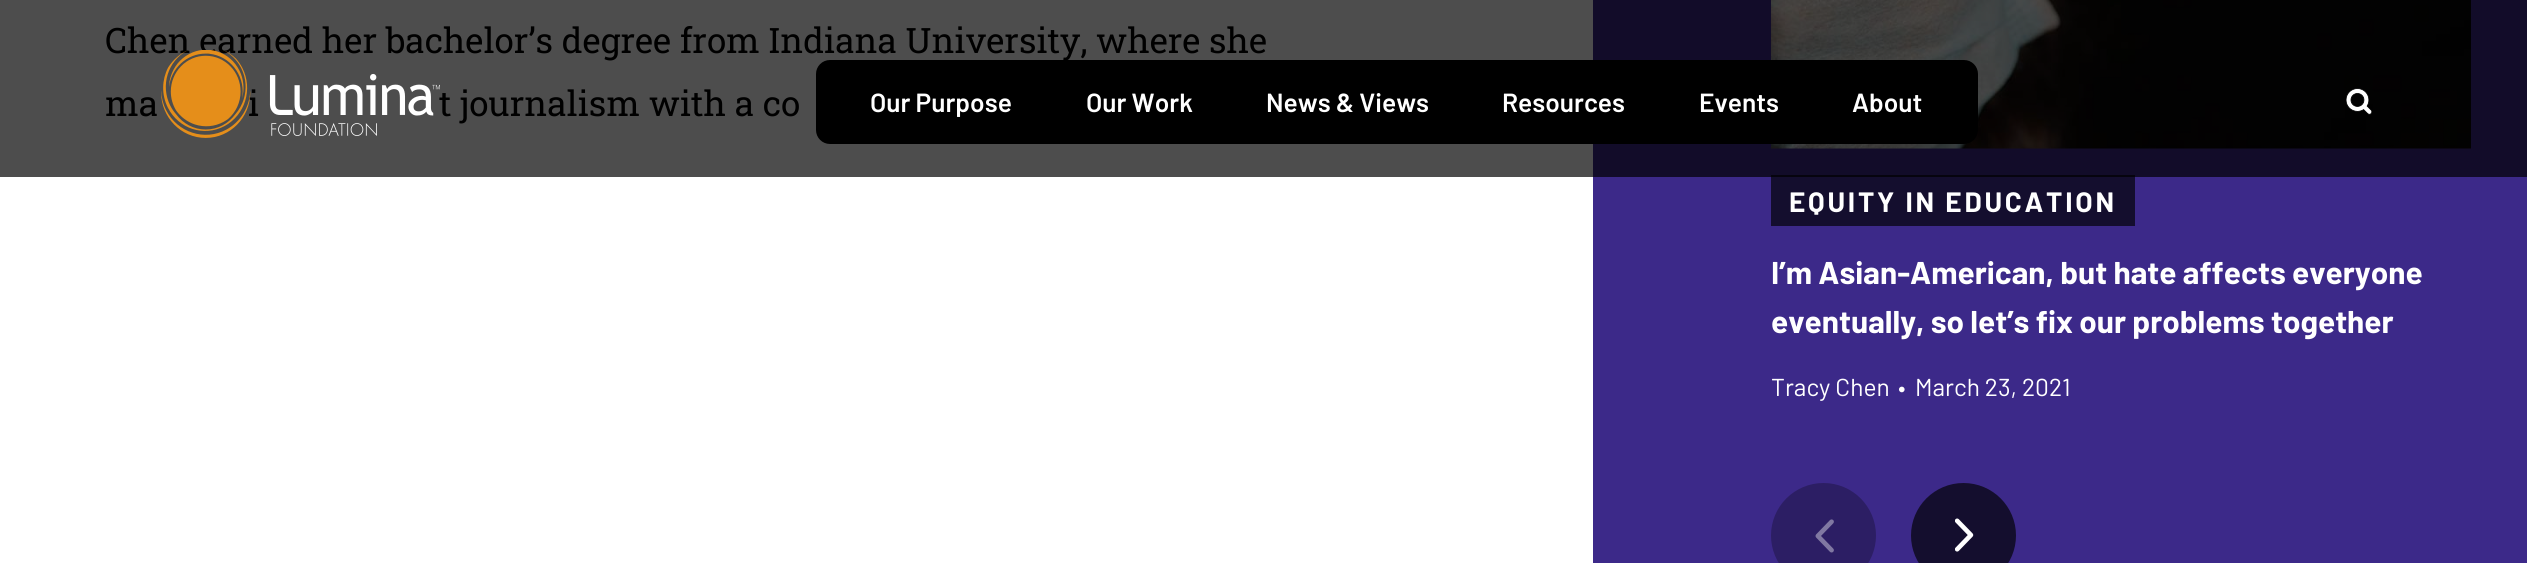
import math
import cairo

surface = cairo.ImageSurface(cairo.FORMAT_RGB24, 2527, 563)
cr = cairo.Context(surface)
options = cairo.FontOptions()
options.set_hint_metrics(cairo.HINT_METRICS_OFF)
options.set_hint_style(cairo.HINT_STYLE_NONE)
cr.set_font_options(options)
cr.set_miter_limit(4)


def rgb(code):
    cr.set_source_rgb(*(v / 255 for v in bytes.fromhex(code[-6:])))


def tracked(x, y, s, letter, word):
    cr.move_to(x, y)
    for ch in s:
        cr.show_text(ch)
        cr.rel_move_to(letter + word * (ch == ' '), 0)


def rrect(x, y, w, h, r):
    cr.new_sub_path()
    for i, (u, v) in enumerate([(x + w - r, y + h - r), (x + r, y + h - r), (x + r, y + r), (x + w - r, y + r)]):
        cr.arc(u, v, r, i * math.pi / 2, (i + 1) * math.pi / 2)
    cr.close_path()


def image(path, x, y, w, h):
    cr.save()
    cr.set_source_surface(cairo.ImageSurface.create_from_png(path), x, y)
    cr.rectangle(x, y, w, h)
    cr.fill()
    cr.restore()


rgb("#ffffff")
cr.paint()
for x, y, w, h, color in [
    (0, 0, 1593, 177, "#4d4d4d"),
    (1593, 177, 934, 386, "#3c2989"),
    (1593, 0, 934, 177, "#120c29"),
]:
    rgb(color)
    cr.rectangle(x, y, w, h)
    cr.fill()
image("img/1.png", 1771, 0, 700, 149)
rgb("#140e2e")
cr.rectangle(1771, 177, 364, 49)
cr.fill()
rgb("#06040e")
cr.rectangle(1771, 175, 364, 2)
cr.fill()
rgb("#2c1e64")
cr.arc(1823.5, 535.5, 52.5, 0, 2 * math.pi)
cr.fill()
image("img/2.png", 1815, 519, 19, 34)
rgb("#140e2e")
cr.arc(1963.5, 535.5, 52.5, 0, 2 * math.pi)
cr.fill()
image("img/3.png", 1955, 518, 19, 34)
rgb("#000000")
rrect(816, 60, 1162, 84, 14)
cr.fill()
image("img/5.png", 2346, 88, 26, 27)
cr.select_font_face("Roboto Slab")
cr.set_font_size(35)
for x, y, s in [
    (105, 53, "Chen earned her bachelor’s degree from Indiana University, where she"),
    (105, 116, "ma"),
    (248, 116, "i"),
    (439, 116, "t journalism with a co"),
]:
    cr.move_to(x, y)
    cr.show_text(s)
cr.select_font_face("Barlow", cairo.FONT_SLANT_NORMAL, cairo.FONT_WEIGHT_BOLD)
cr.set_font_size(28)
rgb("#ffffff")
tracked(1789, 212, "EQUITY IN EDUCATION", 2.75, 0)
cr.set_font_size(31.5)
cr.move_to(1771, 284)
cr.show_text("I’m Asian-American, but hate affects everyone")
cr.move_to(1771, 333)
cr.show_text("eventually, so let’s fix our problems together")
cr.select_font_face("Barlow")
cr.set_font_size(24.5)
for x, y, s in [
    (1771, 396, "Tracy Chen"),
    (1898, 396, "•"),
    (1915, 396, "March 23, 2021"),
]:
    cr.move_to(x, y)
    cr.show_text(s)
image("img/4.png", 161, 50, 279, 88)
cr.select_font_face("Barlow SemiBold")
cr.set_font_size(26.25)
for x, y, s in [
    (870, 112, "Our Purpose"),
    (1086, 112, "Our Work"),
    (1266, 112, "News & Views"),
    (1502, 112, "Resources"),
    (1699, 112, "Events"),
    (1852, 112, "About"),
]:
    cr.move_to(x, y)
    cr.show_text(s)
surface.write_to_png("page.png")
